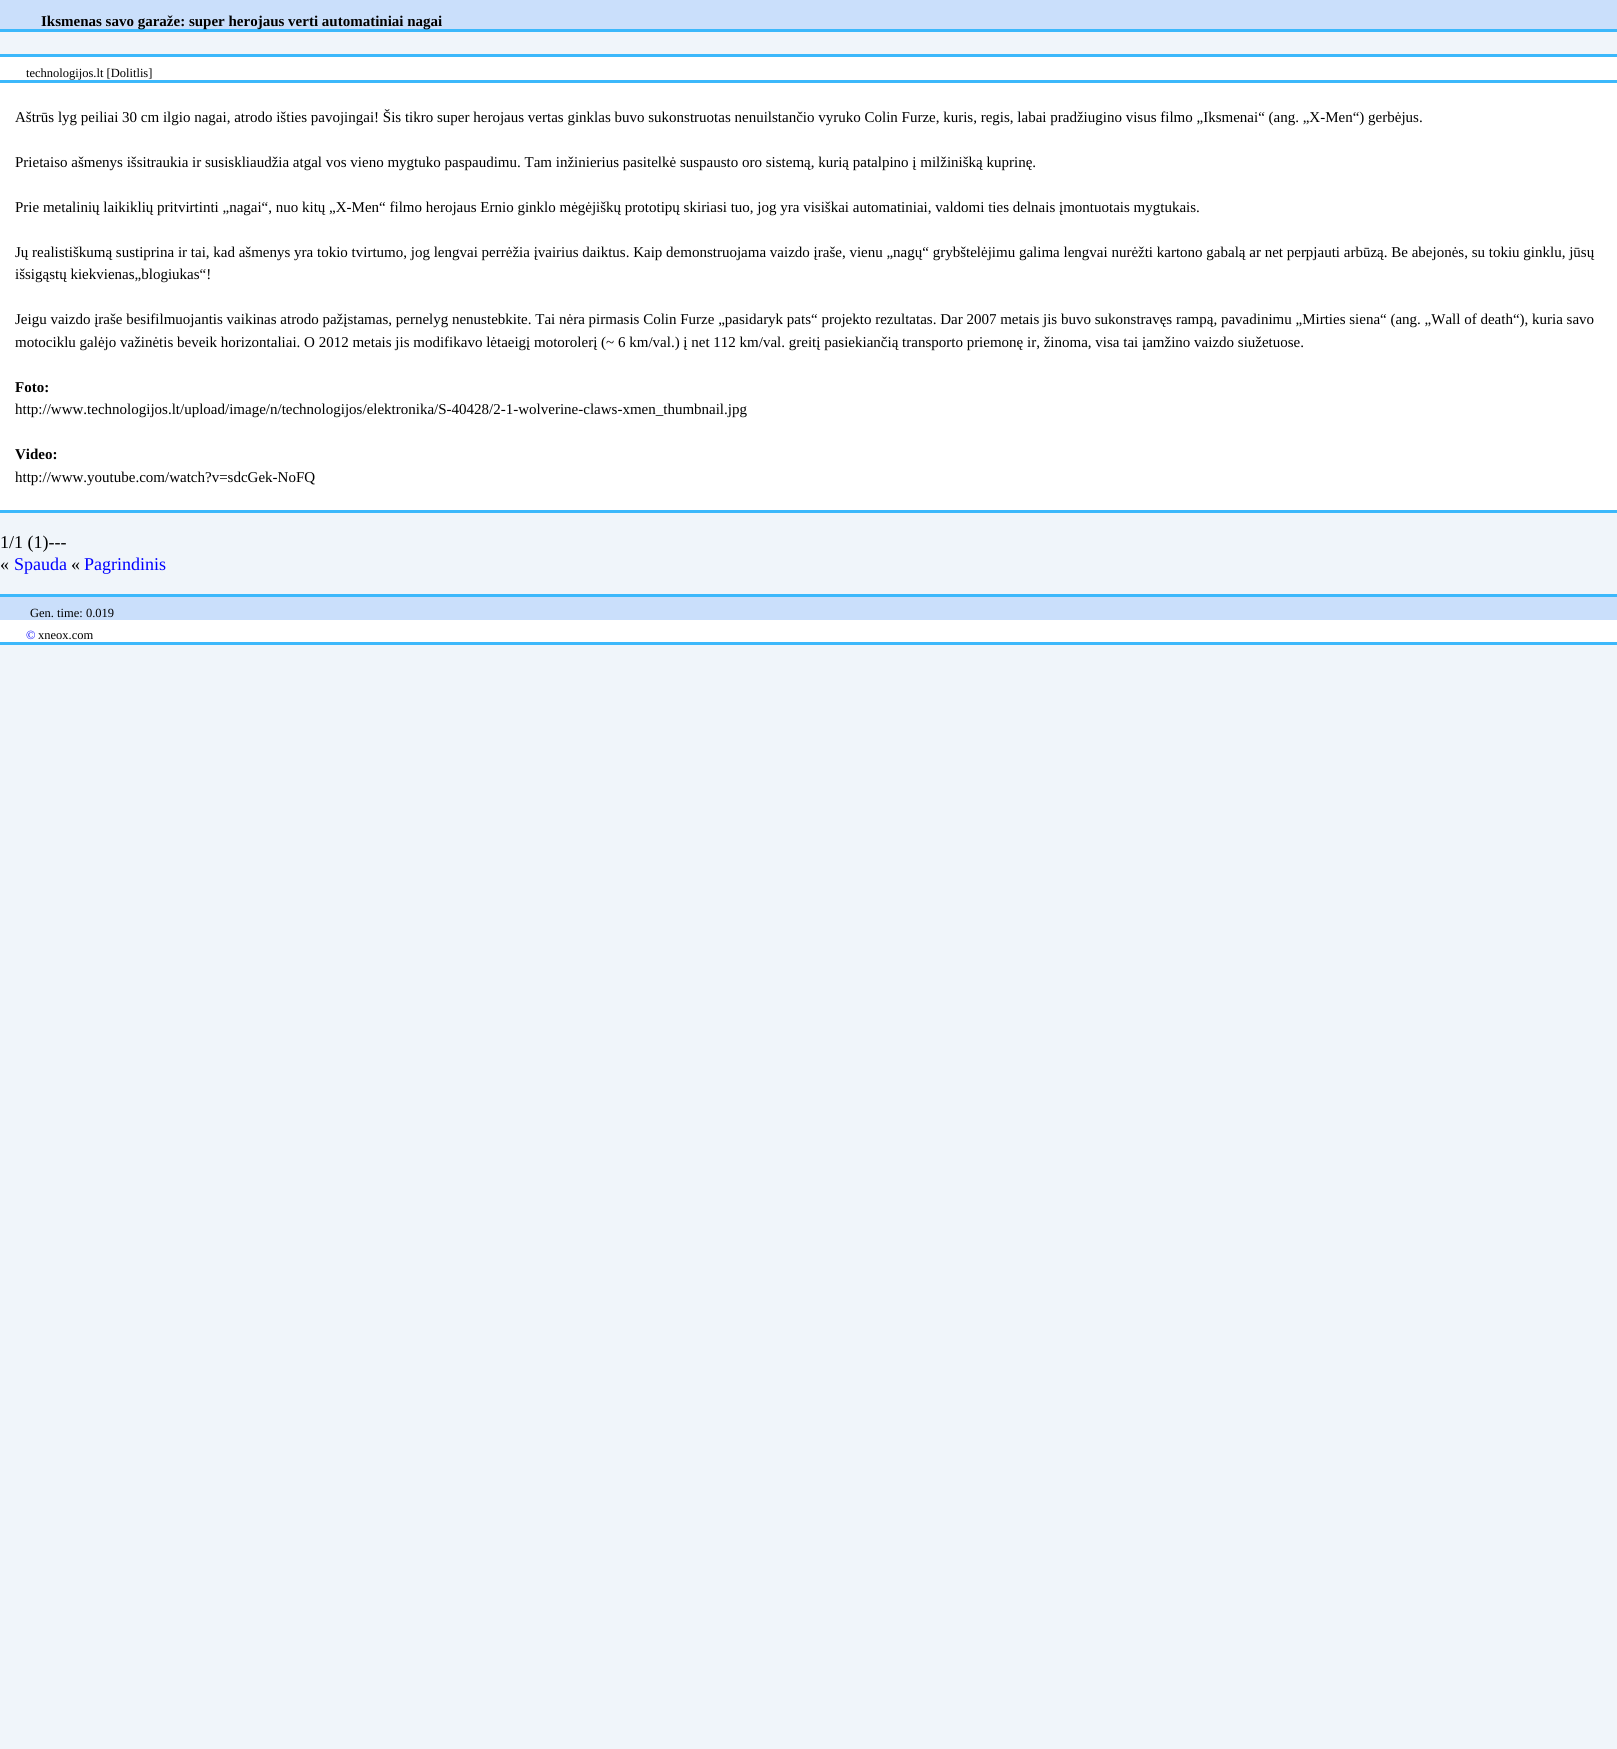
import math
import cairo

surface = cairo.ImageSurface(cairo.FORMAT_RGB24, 1617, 1749)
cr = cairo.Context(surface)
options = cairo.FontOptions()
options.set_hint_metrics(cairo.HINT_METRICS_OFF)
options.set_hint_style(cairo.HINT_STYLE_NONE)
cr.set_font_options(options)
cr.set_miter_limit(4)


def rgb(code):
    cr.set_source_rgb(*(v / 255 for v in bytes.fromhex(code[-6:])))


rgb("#f0f5fa")
cr.paint()
for x, y, w, h, color in [
    (0, 0, 1617, 29, "#cadffb"),
    (0, 29, 1617, 3, "#3cb8fb"),
    (0, 54, 1617, 3, "#3cb8fb"),
    (0, 57, 1617, 23, "#ffffff"),
    (0, 80, 1617, 3, "#3cb8fb"),
    (0, 83, 1617, 427, "#ffffff"),
    (0, 510, 1617, 3, "#3cb8fb"),
    (0, 594, 1617, 3, "#3cb8fb"),
    (0, 597, 1617, 23, "#cadffb"),
    (0, 620, 1617, 22, "#ffffff"),
    (0, 642, 1617, 3, "#3cb8fb"),
]:
    rgb(color)
    cr.rectangle(x, y, w, h)
    cr.fill()
cr.select_font_face("Liberation Serif", cairo.FONT_SLANT_NORMAL, cairo.FONT_WEIGHT_BOLD)
cr.set_font_size(15)
rgb("#000000")
cr.move_to(41, 26)
cr.show_text("Iksmenas savo garaže: super herojaus verti automatiniai nagai")
cr.select_font_face("Liberation Serif")
cr.set_font_size(12.5)
cr.move_to(26, 77)
cr.show_text("technologijos.lt [Dolitlis]")
cr.set_font_size(15)
for x, y, s in [
    (15, 122, "Aštrūs lyg peiliai 30 cm ilgio nagai, atrodo išties pavojingai! Šis tikro super herojaus vertas ginklas buvo sukonstruotas nenuilstančio vyruko Colin Furze, kuris, regis, labai pradžiugino visus filmo „Iksmenai“ (ang. „X-Men“) gerbėjus."),
    (15, 167, "Prietaiso ašmenys išsitraukia ir susiskliaudžia atgal vos vieno mygtuko paspaudimu. Tam inžinierius pasitelkė suspausto oro sistemą, kurią patalpino į milžinišką kuprinę."),
    (15, 212, "Prie metalinių laikiklių pritvirtinti „nagai“, nuo kitų „X-Men“ filmo herojaus Ernio ginklo mėgėjiškų prototipų skiriasi tuo, jog yra visiškai automatiniai, valdomi ties delnais įmontuotais mygtukais."),
    (15, 257, "Jų realistiškumą sustiprina ir tai, kad ašmenys yra tokio tvirtumo, jog lengvai perrėžia įvairius daiktus. Kaip demonstruojama vaizdo įraše, vienu „nagų“ grybštelėjimu galima lengvai nurėžti kartono gabalą ar net perpjauti arbūzą. Be abejonės, su tokiu ginklu, jūsų"),
    (15, 279, "išsigąstų kiekvienas„blogiukas“!"),
    (15, 324, "Jeigu vaizdo įraše besifilmuojantis vaikinas atrodo pažįstamas, pernelyg nenustebkite. Tai nėra pirmasis Colin Furze „pasidaryk pats“ projekto rezultatas. Dar 2007 metais jis buvo sukonstravęs rampą, pavadinimu „Mirties siena“ (ang. „Wall of death“), kuria savo"),
    (15, 347, "motociklu galėjo važinėtis beveik horizontaliai. O 2012 metais jis modifikavo lėtaeigį motorolerį (~ 6 km/val.) į net 112 km/val. greitį pasiekiančią transporto priemonę ir, žinoma, visa tai įamžino vaizdo siužetuose."),
]:
    cr.move_to(x, y)
    cr.show_text(s)
cr.select_font_face("Liberation Serif", cairo.FONT_SLANT_NORMAL, cairo.FONT_WEIGHT_BOLD)
cr.move_to(15, 392)
cr.show_text("Foto:")
cr.select_font_face("Liberation Serif")
cr.move_to(15, 414)
cr.show_text("http://www.technologijos.lt/upload/image/n/technologijos/elektronika/S-40428/2-1-wolverine-claws-xmen_thumbnail.jpg")
cr.select_font_face("Liberation Serif", cairo.FONT_SLANT_NORMAL, cairo.FONT_WEIGHT_BOLD)
cr.move_to(15, 459)
cr.show_text("Video:")
cr.select_font_face("Liberation Serif")
cr.move_to(15, 482)
cr.show_text("http://www.youtube.com/watch?v=sdcGek-NoFQ")
cr.set_font_size(18)
cr.move_to(0, 548)
cr.show_text("1/1 (1)---")
cr.move_to(0, 570)
cr.show_text("«")
rgb("#0000ff")
cr.move_to(14, 570)
cr.show_text("Spauda")
rgb("#000000")
cr.move_to(71, 570)
cr.show_text("«")
rgb("#0000ff")
cr.move_to(84, 570)
cr.show_text("Pagrindinis")
cr.set_font_size(12.5)
rgb("#000000")
cr.move_to(30, 617)
cr.show_text("Gen. time: 0.019")
rgb("#0000ff")
cr.move_to(26, 639)
cr.show_text("©")
rgb("#000000")
cr.move_to(38, 639)
cr.show_text("xneox.com")
surface.write_to_png("page.png")
